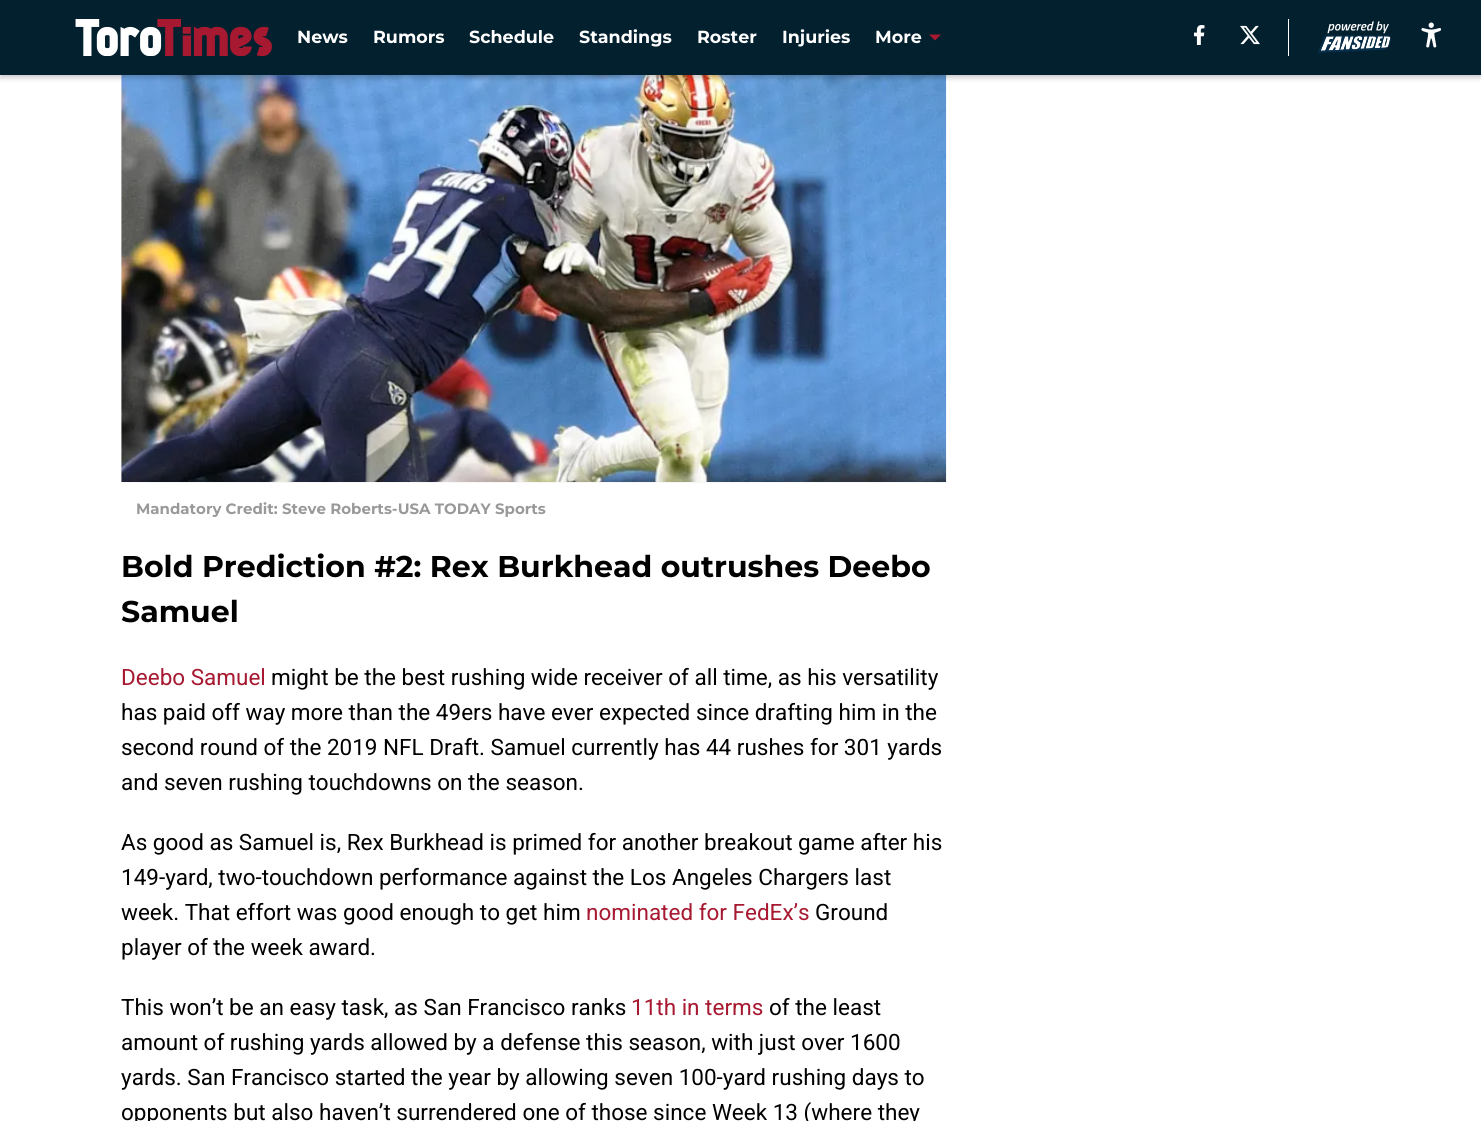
import math
import cairo

surface = cairo.ImageSurface(cairo.FORMAT_RGB24, 1481, 1121)
cr = cairo.Context(surface)
options = cairo.FontOptions()
options.set_hint_metrics(cairo.HINT_METRICS_OFF)
options.set_hint_style(cairo.HINT_STYLE_NONE)
cr.set_font_options(options)
cr.set_miter_limit(4)


def rgb(code):
    cr.set_source_rgb(*(v / 255 for v in bytes.fromhex(code[-6:])))


def rrect(x, y, w, h, r):
    cr.new_sub_path()
    for i, (u, v) in enumerate([(x + w - r, y + h - r), (x + r, y + h - r), (x + r, y + r), (x + w - r, y + r)]):
        cr.arc(u, v, r, i * math.pi / 2, (i + 1) * math.pi / 2)
    cr.close_path()


def soft_shadow(x, y, w, h, r, blur, alpha):
    cr.push_group_with_content(cairo.CONTENT_ALPHA)
    cr.set_operator(cairo.OPERATOR_SOURCE)
    for i in range(15, -16, -2):
        e = blur * i / 6
        if min(w, h) + 2 * e > 0:
            cr.set_source_rgba(0, 0, 0, alpha * math.erfc((i - 1) / 8.5) / 2)
            rrect(x - e, y - e, w + 2 * e, h + 2 * e, max(0, min(r + e + blur * .6, min(w, h) / 2 + e)))
            cr.fill()
    cr.mask(cr.pop_group())


def image(path, x, y, w, h):
    cr.save()
    cr.set_source_surface(cairo.ImageSurface.create_from_png(path), x, y)
    cr.rectangle(x, y, w, h)
    cr.fill()
    cr.restore()


rgb("#ffffff")
cr.paint()
rgb("#f7f7f7")
cr.rectangle(121, 75, 825, 408)
cr.fill()
image("img/6.png", 121, 75, 826, 407)
rgb("#000000")
soft_shadow(0, 3, 1481, 75, 0, 2.5, 0.2)
rgb("#03202f")
cr.rectangle(0, 0, 1481, 75)
cr.fill()
image("img/1.png", 75, 19, 197, 37)
rgb("#a71930")
cr.set_fill_rule(cairo.FILL_RULE_EVEN_ODD)
cr.new_path()
cr.move_to(929, 34.5)
cr.line_to(935, 40.5)
cr.line_to(941, 34.5)
cr.close_path()
cr.fill()
image("img/2.png", 1194, 25, 11, 20)
image("img/3.png", 1240, 25, 20, 20)
rgb("#ffffff")
cr.rectangle(1288, 19, 1, 37)
cr.fill()
image("img/4.png", 1318, 21, 73, 32)
image("img/5.png", 1421, 22, 21, 26)
cr.select_font_face("Montserrat Thin")
cr.set_font_size(17.5)
for x, y, s in [
    (297, 43, "News"),
    (373, 43, "Rumors"),
    (469, 43, "Schedule"),
    (579, 43, "Standings"),
    (697, 43, "Roster"),
    (782, 43, "Injuries"),
    (875, 43, "More"),
]:
    cr.move_to(x, y)
    cr.show_text(s)
cr.set_font_size(15)
rgb("#999999")
cr.move_to(136, 514)
cr.show_text("Mandatory Credit: Steve Roberts-USA TODAY Sports")
cr.set_font_size(30)
rgb("#000000")
cr.move_to(121, 577)
cr.show_text("Bold Prediction #2: Rex Burkhead outrushes Deebo")
cr.move_to(121, 622)
cr.show_text("Samuel")
cr.select_font_face("Roboto")
cr.set_font_size(22.5)
rgb("#a71930")
cr.move_to(121, 685)
cr.show_text("Deebo Samuel")
rgb("#000000")
for x, y, s in [
    (271, 685, "might be the best rushing wide receiver of all time, as his versatility"),
    (121, 720, "has paid off way more than the 49ers have ever expected since drafting him in the"),
    (121, 755, "second round of the 2019 NFL Draft. Samuel currently has 44 rushes for 301 yards"),
    (121, 790, "and seven rushing touchdowns on the season."),
    (121, 850, "As good as Samuel is, Rex Burkhead is primed for another breakout game after his"),
    (121, 885, "149-yard, two-touchdown performance against the Los Angeles Chargers last"),
    (121, 920, "week. That effort was good enough to get him"),
]:
    cr.move_to(x, y)
    cr.show_text(s)
rgb("#a71930")
cr.move_to(586, 920)
cr.show_text("nominated for FedEx’s")
rgb("#000000")
for x, y, s in [
    (815, 920, "Ground"),
    (121, 955, "player of the week award."),
    (121, 1015, "This won’t be an easy task, as San Francisco ranks"),
]:
    cr.move_to(x, y)
    cr.show_text(s)
rgb("#a71930")
cr.move_to(631, 1015)
cr.show_text("11th in terms")
rgb("#000000")
for x, y, s in [
    (769, 1015, "of the least"),
    (121, 1050, "amount of rushing yards allowed by a defense this season, with just over 1600"),
    (121, 1085, "yards. San Francisco started the year by allowing seven 100-yard rushing days to"),
    (121, 1120, "opponents but also haven’t surrendered one of those since Week 13 (where they"),
]:
    cr.move_to(x, y)
    cr.show_text(s)
surface.write_to_png("page.png")
